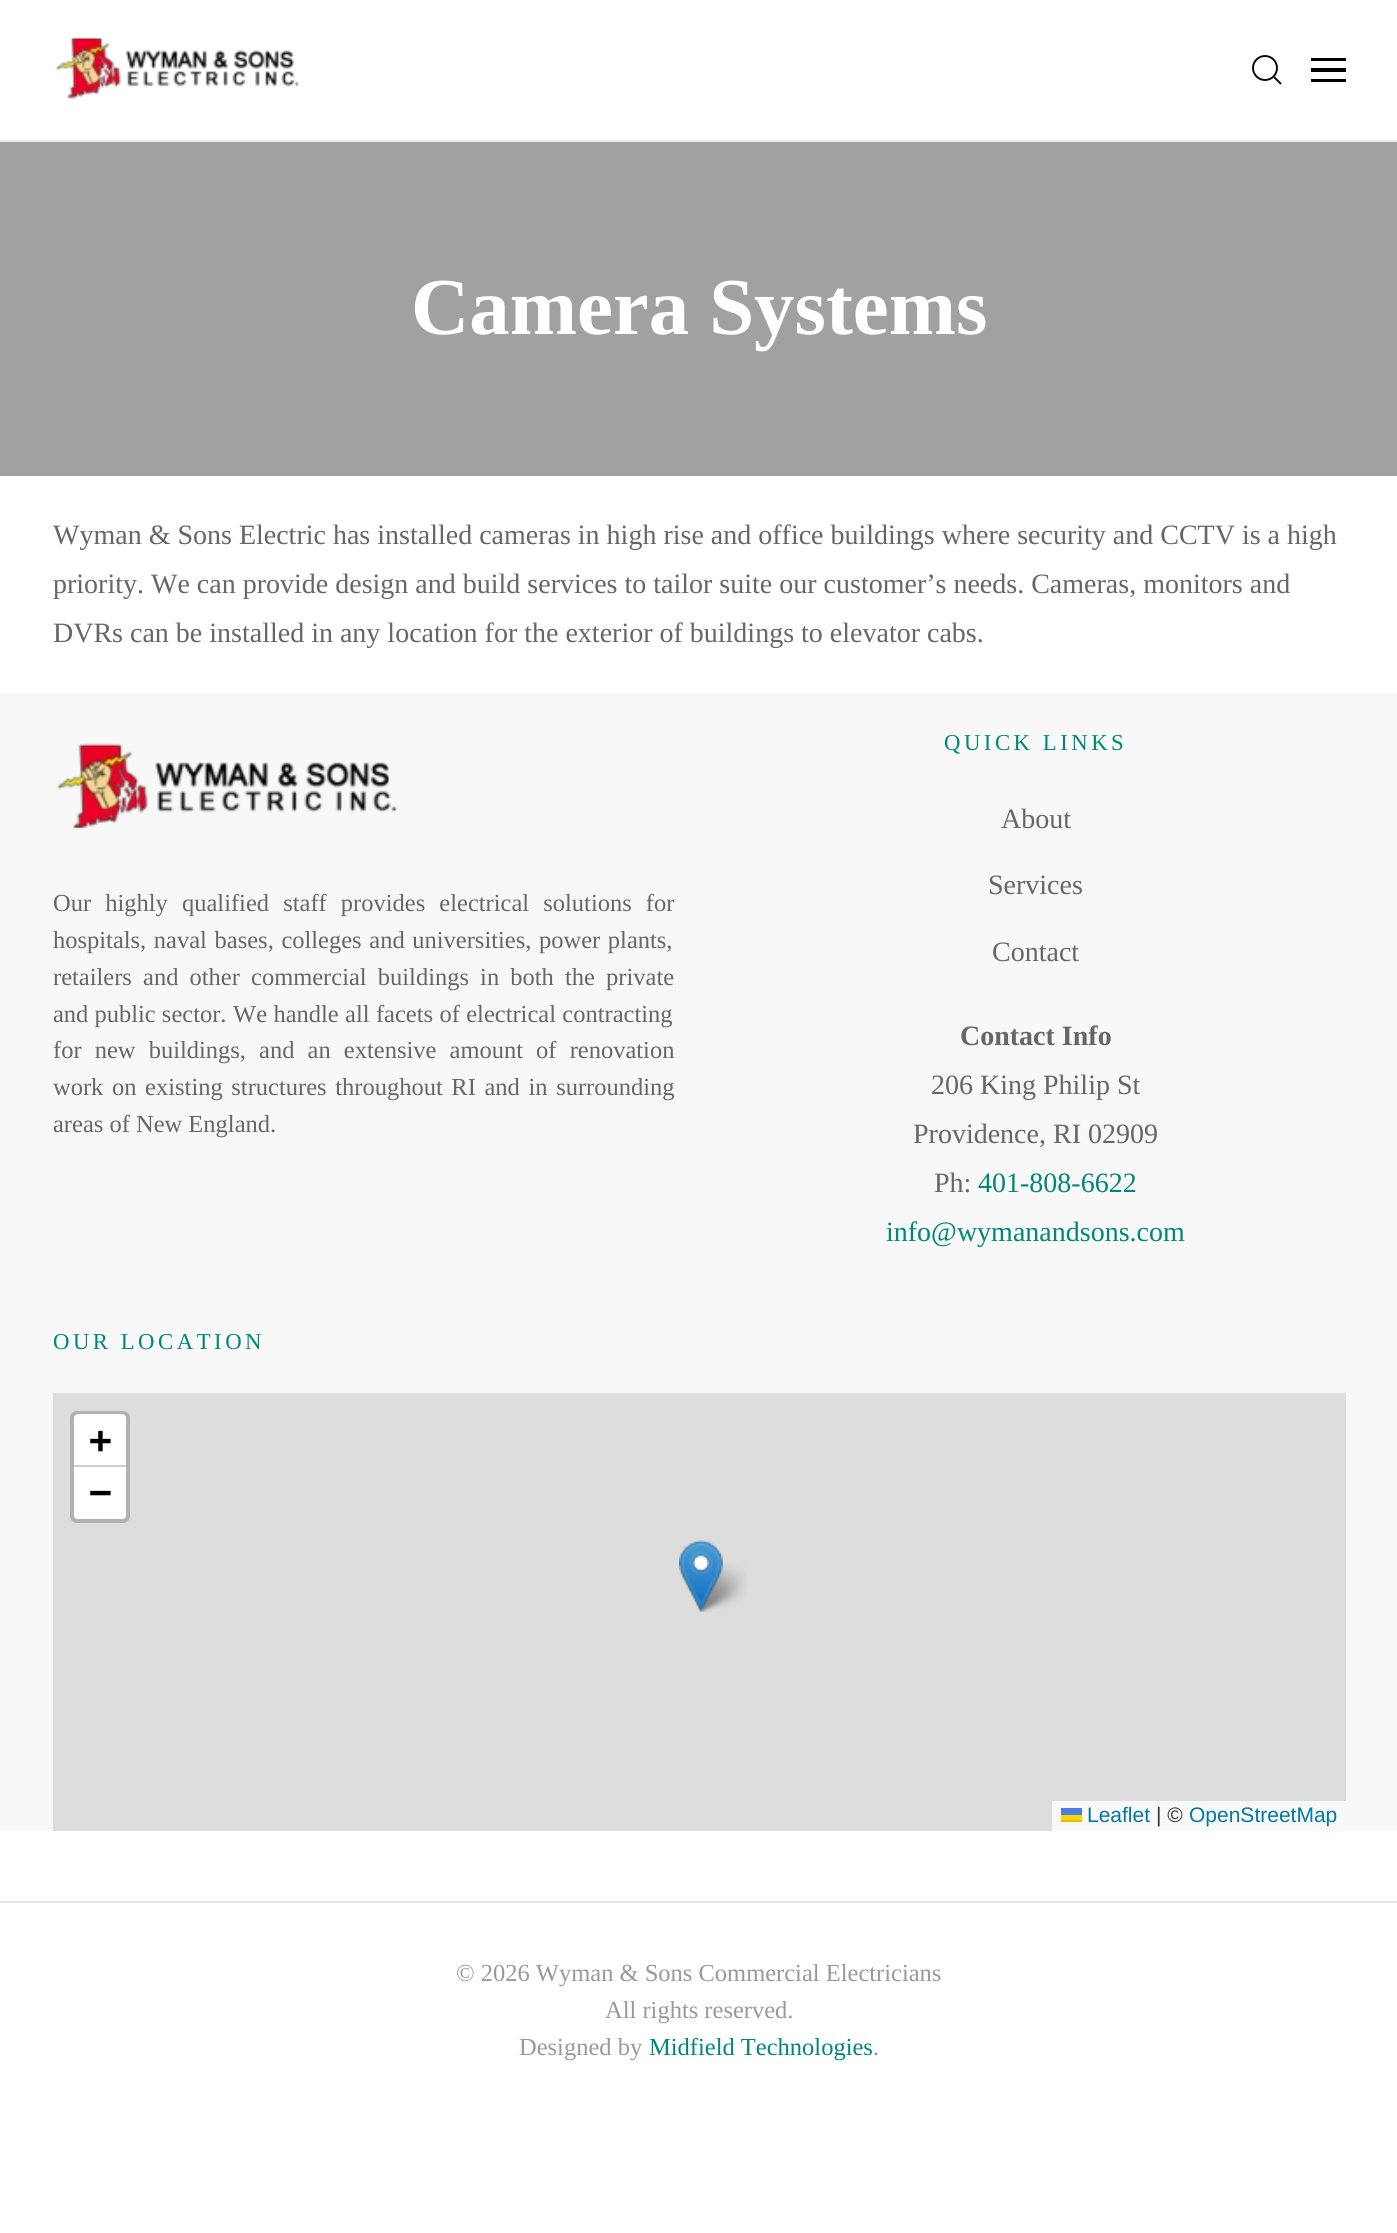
import math
import cairo

surface = cairo.ImageSurface(cairo.FORMAT_RGB24, 1397, 2233)
cr = cairo.Context(surface)
options = cairo.FontOptions()
options.set_hint_metrics(cairo.HINT_METRICS_OFF)
options.set_hint_style(cairo.HINT_STYLE_NONE)
cr.set_font_options(options)
cr.set_miter_limit(4)


def rgb(code):
    cr.set_source_rgb(*(v / 255 for v in bytes.fromhex(code[-6:])))


def tracked(x, y, s, letter, word):
    cr.move_to(x, y)
    for ch in s:
        cr.show_text(ch)
        cr.rel_move_to(letter + word * (ch == ' '), 0)


def rrect(x, y, w, h, r):
    cr.new_sub_path()
    for i, (u, v) in enumerate([(x + w - r, y + h - r), (x + r, y + h - r), (x + r, y + r), (x + w - r, y + r)]):
        cr.arc(u, v, r, i * math.pi / 2, (i + 1) * math.pi / 2)
    cr.close_path()


def image(path, x, y, w, h):
    cr.save()
    cr.set_source_surface(cairo.ImageSurface.create_from_png(path), x, y)
    cr.rectangle(x, y, w, h)
    cr.fill()
    cr.restore()


rgb("#ffffff")
cr.paint()
rgb("#e8e8e8")
cr.rectangle(0, 140, 1397, 2)
cr.fill()
image("img/1.png", 55, 38, 245, 61)
cr.arc(1265, 68, 12, 0, 2 * math.pi)
rgb("#000000")
cr.set_line_width(1.9)
cr.stroke()
cr.new_path()
cr.move_to(1274, 77)
cr.line_to(1281, 84)
cr.close_path()
cr.stroke()
for x, y, w, h, color in [
    (1311, 58, 35, 3, "#000000"),
    (1311, 68, 35, 4, "#000000"),
    (1311, 79, 35, 3, "#000000"),
    (0, 142, 1397, 334, "#a1a1a1"),
    (0, 693, 1397, 1138, "#f8f8f8"),
]:
    rgb(color)
    cr.rectangle(x, y, w, h)
    cr.fill()
image("img/2.png", 57, 743, 341, 86)
rgb("#dddddd")
cr.rectangle(53, 1393, 1293, 438)
cr.fill()
rrect(72, 1413, 56, 108, 5)
rgb("#b1b1b1")
cr.set_line_width(4)
cr.stroke()
rgb("#ffffff")
cr.new_path()
cr.move_to(78, 1414)
cr.line_to(122, 1414)
cr.curve_to(124, 1414, 126, 1416, 126, 1418)
cr.line_to(126, 1467)
cr.line_to(74, 1467)
cr.line_to(74, 1418)
cr.curve_to(74, 1416, 76, 1414, 78, 1414)
cr.close_path()
cr.fill()
rgb("#cccccc")
cr.rectangle(74, 1465, 52, 2)
cr.fill()
rgb("#ffffff")
cr.new_path()
cr.move_to(74, 1467)
cr.line_to(126, 1467)
cr.line_to(126, 1515)
cr.curve_to(126, 1517, 124, 1519, 122, 1519)
cr.line_to(78, 1519)
cr.curve_to(76, 1519, 74, 1517, 74, 1515)
cr.close_path()
cr.fill()
for x, y, w, h, color in [
    (1052, 1801, 294, 30, "#f8f8f8"),
    (1061, 1808, 21, 7, "#4c7be1"),
    (1061, 1815, 21, 5, "#ffd500"),
    (1061, 1820, 21, 2, "#e0bc00"),
]:
    rgb(color)
    cr.rectangle(x, y, w, h)
    cr.fill()
image("img/4.png", 695, 1562, 52, 50)
image("img/3.png", 679, 1540, 44, 72)
rgb("#e8e8e8")
cr.rectangle(0, 1901, 1397, 2)
cr.fill()
cr.select_font_face("Liberation Serif", cairo.FONT_SLANT_NORMAL, cairo.FONT_WEIGHT_BOLD)
cr.set_font_size(80.75)
rgb("#ffffff")
cr.move_to(411, 334)
cr.show_text("Camera Systems")
cr.select_font_face("Liberation Serif")
cr.set_font_size(28)
rgb("#666666")
for x, y, s in [
    (53, 544, "Wyman & Sons Electric has installed cameras in high rise and office buildings where security and CCTV is a high"),
    (53, 593, "priority. We can provide design and build services to tailor suite our customer’s needs. Cameras, monitors and"),
    (53, 642, "DVRs can be installed in any location for the exterior of buildings to elevator cabs."),
]:
    cr.move_to(x, y)
    cr.show_text(s)
cr.set_font_size(24.5)
tracked(53, 911, "Our highly qualified staff provides electrical solutions for", 0, 8)
tracked(53, 948, "hospitals, naval bases, colleges and universities, power plants,", 0, 1.5)
tracked(53, 985, "retailers and other commercial buildings in both the private", 0, 5)
cr.move_to(53, 1022)
cr.show_text("and public sector.")
tracked(233, 1022, "We handle all facets of electrical contracting", 0, 0.25)
tracked(53, 1058, "for new buildings, and an extensive amount of renovation", 0, 7)
tracked(53, 1095, "work on existing structures throughout RI and in surrounding", 0, 2.5)
cr.move_to(53, 1132)
cr.show_text("areas of New England.")
cr.set_font_size(22.75)
rgb("#008776")
tracked(944, 750, "QUICK LINKS", 3.5, 0)
cr.set_font_size(28)
rgb("#666666")
for x, y, s in [
    (1001, 828, "About"),
    (988, 894, "Services"),
    (992, 961, "Contact"),
]:
    cr.move_to(x, y)
    cr.show_text(s)
cr.select_font_face("Liberation Serif", cairo.FONT_SLANT_NORMAL, cairo.FONT_WEIGHT_BOLD)
cr.move_to(960, 1045)
cr.show_text("Contact Info")
cr.select_font_face("Liberation Serif")
for x, y, s in [
    (931, 1094, "206 King Philip St"),
    (913, 1143, "Providence, RI 02909"),
    (934, 1192, "Ph:"),
]:
    cr.move_to(x, y)
    cr.show_text(s)
rgb("#008776")
cr.move_to(978, 1192)
cr.show_text("401-808-6622")
cr.move_to(886, 1241)
cr.show_text("info@wymanandsons.com")
cr.set_font_size(22.75)
tracked(53, 1349, "OUR LOCATION", 3.5, 0)
cr.select_font_face("DejaVu Sans Mono", cairo.FONT_SLANT_NORMAL, cairo.FONT_WEIGHT_BOLD)
cr.set_font_size(38)
rgb("#000000")
cr.move_to(89, 1453)
cr.show_text("+")
cr.move_to(89, 1505)
cr.show_text("−")
cr.select_font_face("Liberation Sans")
cr.set_font_size(21)
rgb("#0078a8")
cr.move_to(1087, 1822)
cr.show_text("Leaflet")
rgb("#333333")
cr.move_to(1156, 1822)
cr.show_text("| ©")
rgb("#0078a8")
cr.move_to(1189, 1822)
cr.show_text("OpenStreetMap")
cr.select_font_face("Liberation Serif")
cr.set_font_size(24.5)
rgb("#999999")
for x, y, s in [
    (456, 1981, "© 2026 Wyman & Sons Commercial Electricians"),
    (605, 2018, "All rights reserved."),
    (519, 2055, "Designed by"),
]:
    cr.move_to(x, y)
    cr.show_text(s)
rgb("#008776")
cr.move_to(649, 2055)
cr.show_text("Midfield Technologies")
rgb("#999999")
cr.move_to(873, 2055)
cr.show_text(".")
surface.write_to_png("page.png")
